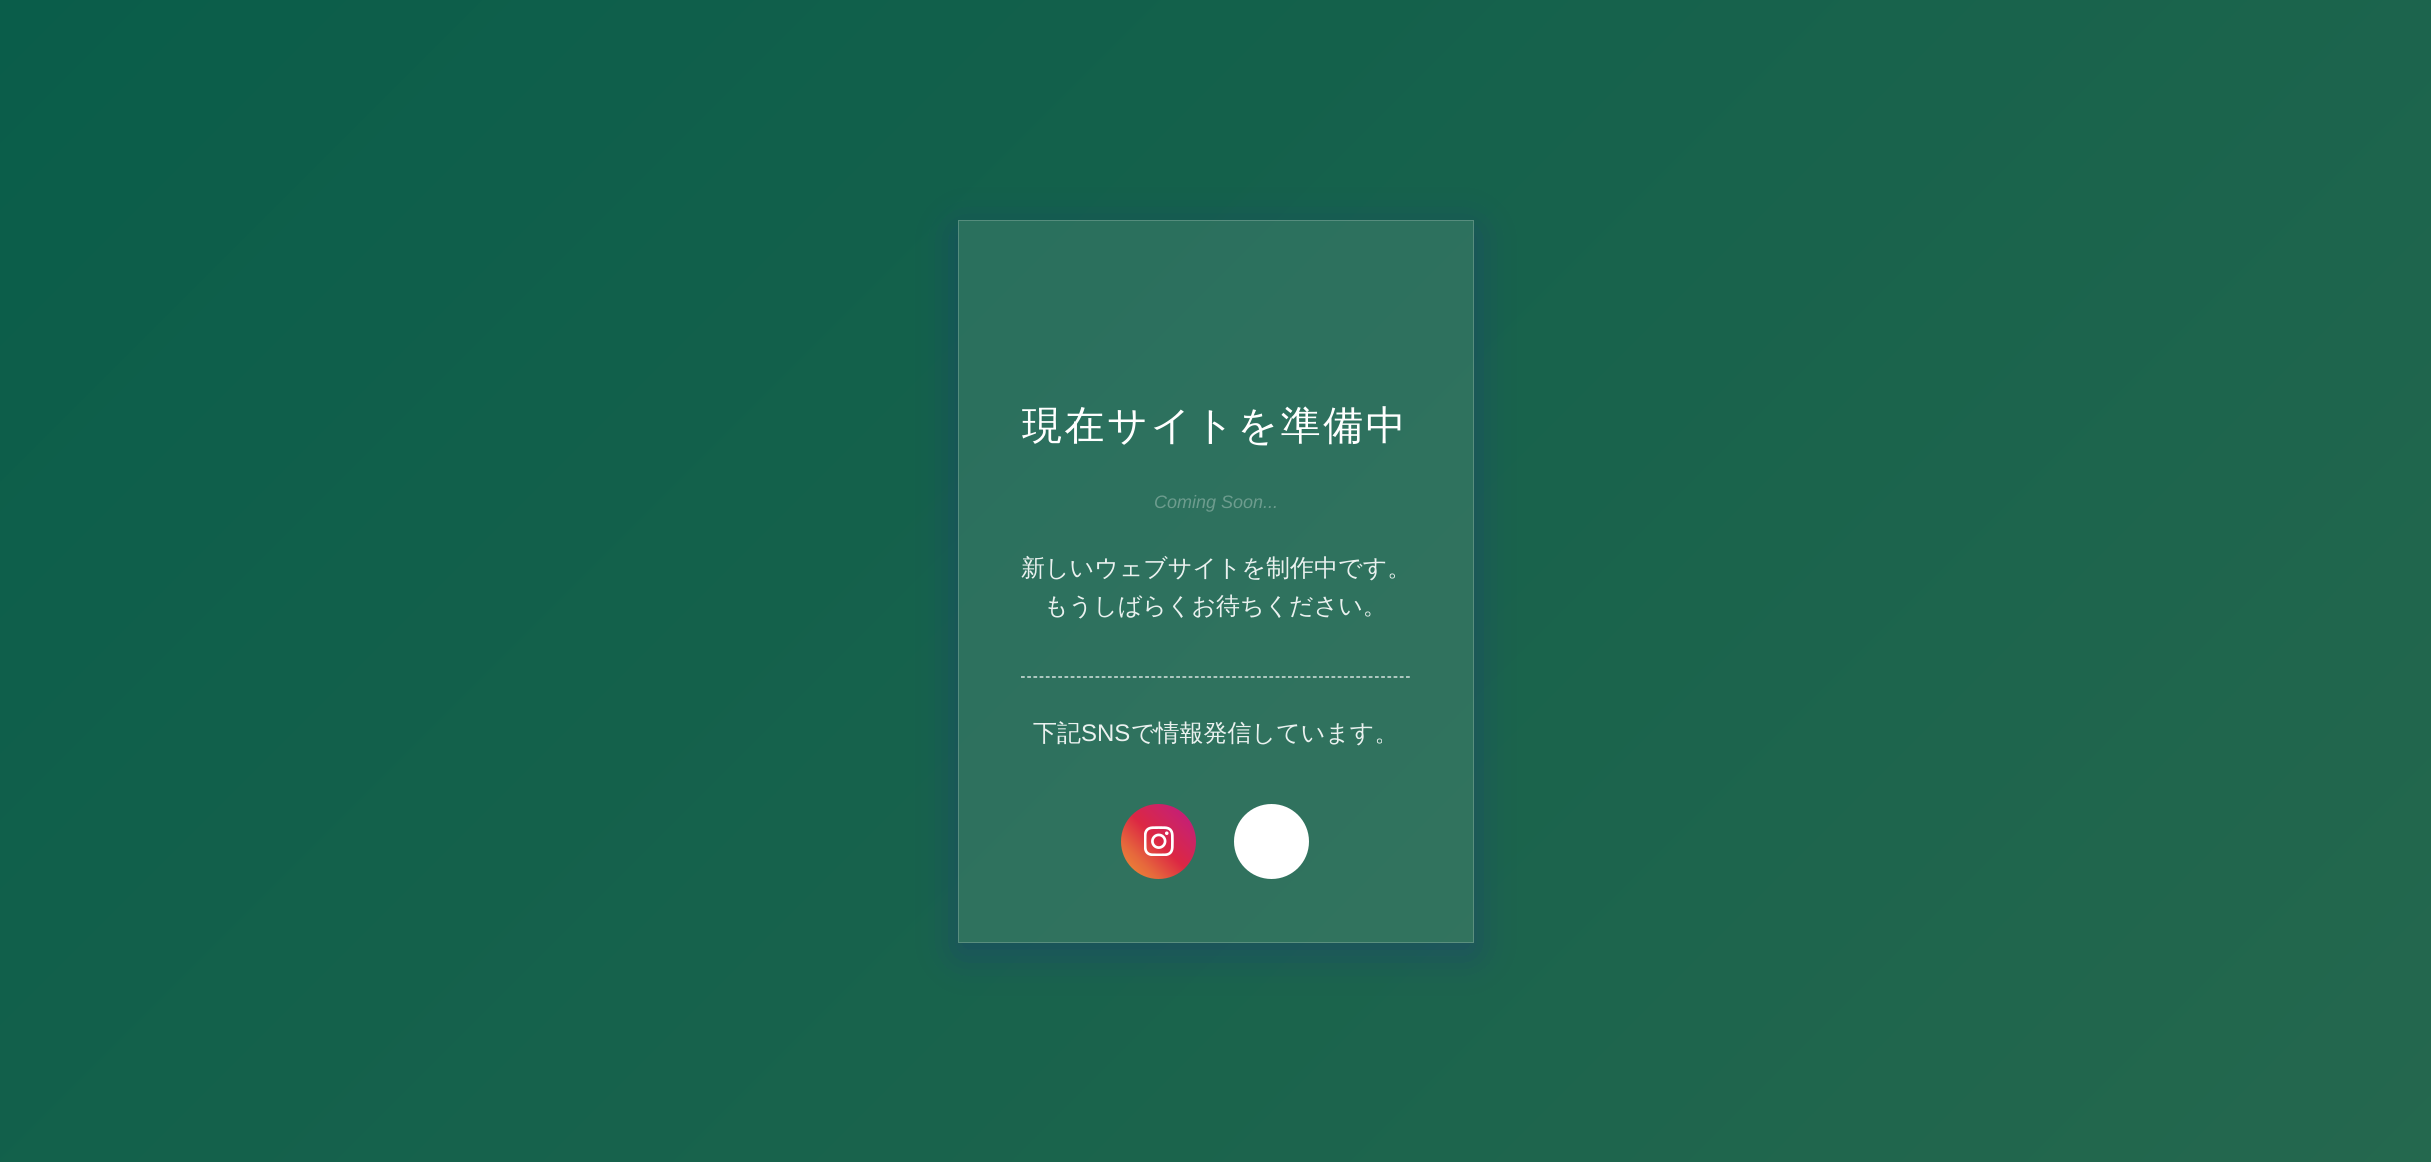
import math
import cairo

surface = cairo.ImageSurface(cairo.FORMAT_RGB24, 2431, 1162)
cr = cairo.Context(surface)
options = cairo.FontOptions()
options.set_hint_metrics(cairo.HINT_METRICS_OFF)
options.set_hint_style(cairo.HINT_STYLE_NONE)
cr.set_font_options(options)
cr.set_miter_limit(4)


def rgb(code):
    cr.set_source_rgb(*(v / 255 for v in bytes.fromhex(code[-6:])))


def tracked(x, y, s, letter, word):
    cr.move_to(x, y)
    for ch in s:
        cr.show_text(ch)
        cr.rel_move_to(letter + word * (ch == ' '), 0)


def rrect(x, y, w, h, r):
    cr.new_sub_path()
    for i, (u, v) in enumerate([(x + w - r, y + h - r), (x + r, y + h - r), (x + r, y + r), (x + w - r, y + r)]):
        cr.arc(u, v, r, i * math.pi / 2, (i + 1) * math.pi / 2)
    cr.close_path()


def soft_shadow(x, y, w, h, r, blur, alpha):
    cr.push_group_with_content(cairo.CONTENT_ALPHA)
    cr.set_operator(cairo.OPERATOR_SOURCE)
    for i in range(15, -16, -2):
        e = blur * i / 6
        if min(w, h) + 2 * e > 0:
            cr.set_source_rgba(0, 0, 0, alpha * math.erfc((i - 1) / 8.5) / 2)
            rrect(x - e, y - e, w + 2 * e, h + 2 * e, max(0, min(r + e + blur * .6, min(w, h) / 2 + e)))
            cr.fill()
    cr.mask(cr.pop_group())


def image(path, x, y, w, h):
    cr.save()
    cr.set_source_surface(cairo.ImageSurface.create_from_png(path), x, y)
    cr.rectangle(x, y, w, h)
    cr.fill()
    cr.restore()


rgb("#ffffff")
cr.paint()
gradient = cairo.LinearGradient(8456, 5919, 1269, -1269)
gradient.add_color_stop_rgba(0, 0.106, 0.302, 0.243, 1)
gradient.add_color_stop_rgba(0.33, 0.059, 0.188, 0.153, 1)
gradient.add_color_stop_rgba(0.67, 0.176, 0.42, 0.31, 1)
gradient.add_color_stop_rgba(1, 0.039, 0.365, 0.29, 1)
cr.set_source(gradient)
cr.rectangle(0, 0, 2431, 1162)
cr.fill()
cr.save()
cr.set_fill_rule(cairo.FILL_RULE_EVEN_ODD)
cr.new_path()
cr.move_to(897, 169)
cr.line_to(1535, 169)
cr.line_to(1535, 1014)
cr.line_to(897, 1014)
cr.close_path()
cr.move_to(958, 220)
cr.line_to(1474, 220)
cr.line_to(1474, 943)
cr.line_to(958, 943)
cr.close_path()
cr.clip()
rgb("#1f2687")
soft_shadow(958, 230, 516, 723, 0, 20, 0.37)
cr.restore()
cr.set_source_rgba(1, 1, 1, 0.1)
cr.rectangle(958, 220, 516, 723)
cr.fill()
cr.rectangle(958.5, 220.5, 515, 722)
cr.set_source_rgba(1, 1, 1, 0.2)
cr.set_line_width(1)
cr.stroke()
cr.new_path()
cr.move_to(1021, 677)
cr.line_to(1410, 677)
rgb("#ffffff")
cr.set_line_width(1.2)
cr.set_dash([3.75, 2.46])
cr.stroke()
gradient = cairo.LinearGradient(1121, 879, 1196, 804)
gradient.add_color_stop_rgba(0, 0.941, 0.58, 0.2, 1)
gradient.add_color_stop_rgba(0.25, 0.902, 0.408, 0.235, 1)
gradient.add_color_stop_rgba(0.5, 0.863, 0.153, 0.263, 1)
gradient.add_color_stop_rgba(0.75, 0.8, 0.137, 0.4, 1)
gradient.add_color_stop_rgba(1, 0.737, 0.094, 0.533, 1)
cr.set_source(gradient)
cr.arc(1158.5, 841.5, 37.5, 0, 2 * math.pi)
cr.fill()
image("img/1.png", 1144, 826, 30, 30)
rgb("#ffffff")
cr.arc(1271.5, 841.5, 37.5, 0, 2 * math.pi)
cr.fill()
cr.select_font_face("WenQuanYi Zen Hei Medium")
cr.set_font_size(40)
tracked(1022, 439, "現在サイトを準備中", 2.5, 0)
cr.select_font_face("Liberation Sans", cairo.FONT_SLANT_ITALIC)
cr.set_font_size(18)
rgb("#6d9c8e")
cr.move_to(1154, 508)
cr.show_text("Coming Soon...")
cr.select_font_face("WenQuanYi Zen Hei Medium")
cr.set_font_size(24)
rgb("#eaf1ef")
for x, y, s in [
    (1021, 576, "新しいウェブサイトを制作中です。"),
    (1044, 614, "もうしばらくお待ちください。"),
    (1033, 741, "下記"),
]:
    cr.move_to(x, y)
    cr.show_text(s)
cr.select_font_face("Liberation Sans")
cr.move_to(1081, 741)
cr.show_text("SNS")
cr.select_font_face("WenQuanYi Zen Hei Medium")
cr.move_to(1131, 741)
cr.show_text("で情報発信しています。")
surface.write_to_png("page.png")
